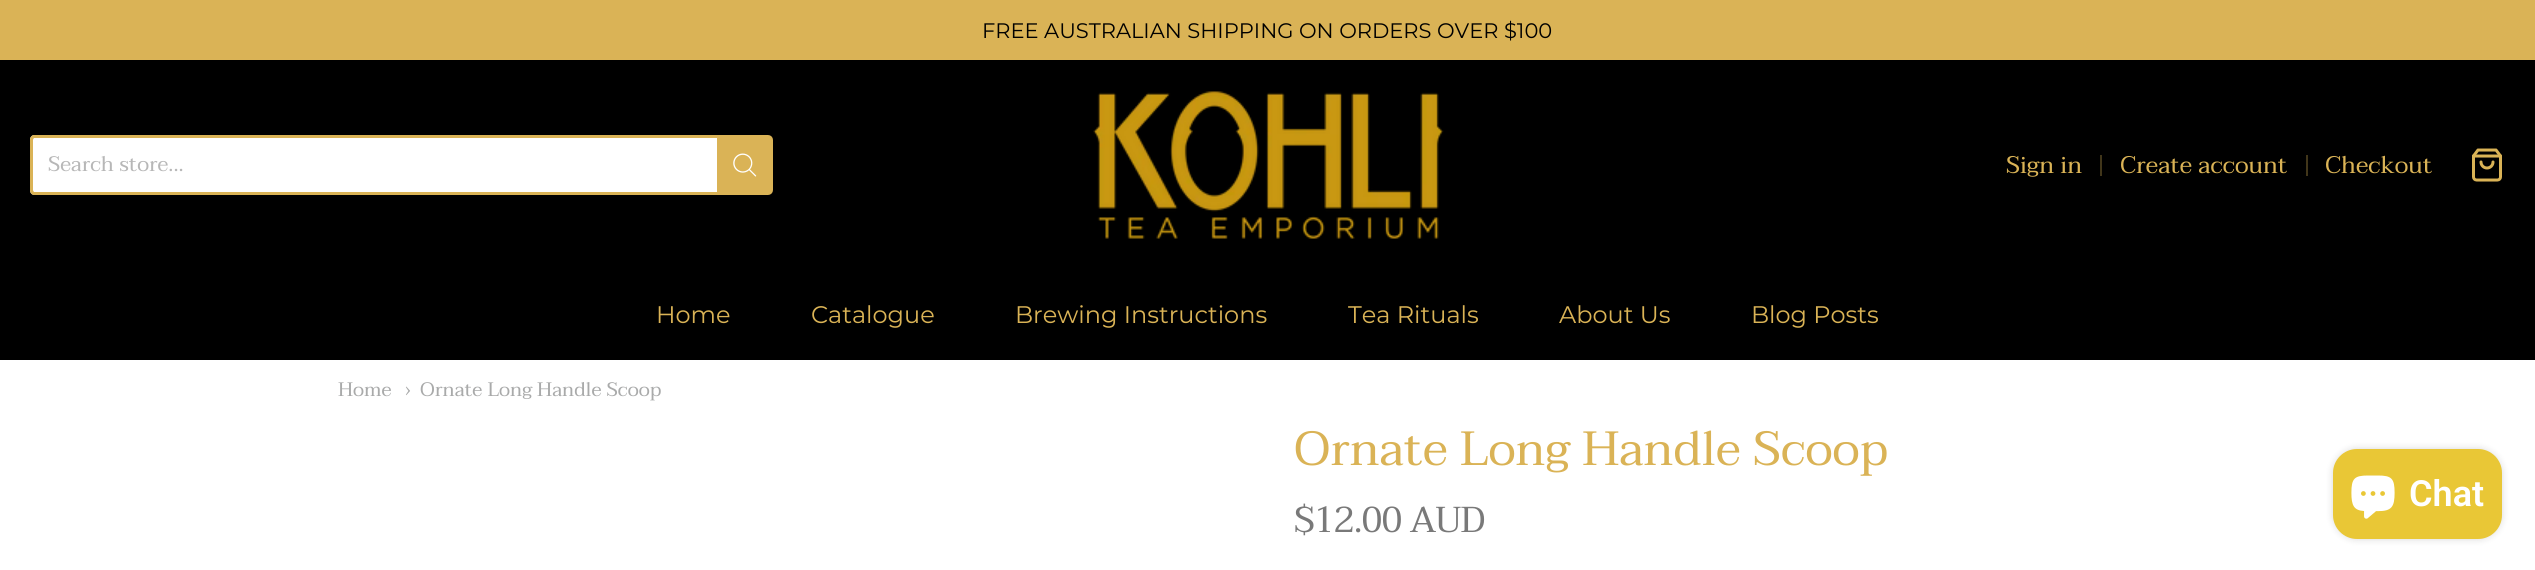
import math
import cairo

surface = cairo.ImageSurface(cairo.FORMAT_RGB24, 2535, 570)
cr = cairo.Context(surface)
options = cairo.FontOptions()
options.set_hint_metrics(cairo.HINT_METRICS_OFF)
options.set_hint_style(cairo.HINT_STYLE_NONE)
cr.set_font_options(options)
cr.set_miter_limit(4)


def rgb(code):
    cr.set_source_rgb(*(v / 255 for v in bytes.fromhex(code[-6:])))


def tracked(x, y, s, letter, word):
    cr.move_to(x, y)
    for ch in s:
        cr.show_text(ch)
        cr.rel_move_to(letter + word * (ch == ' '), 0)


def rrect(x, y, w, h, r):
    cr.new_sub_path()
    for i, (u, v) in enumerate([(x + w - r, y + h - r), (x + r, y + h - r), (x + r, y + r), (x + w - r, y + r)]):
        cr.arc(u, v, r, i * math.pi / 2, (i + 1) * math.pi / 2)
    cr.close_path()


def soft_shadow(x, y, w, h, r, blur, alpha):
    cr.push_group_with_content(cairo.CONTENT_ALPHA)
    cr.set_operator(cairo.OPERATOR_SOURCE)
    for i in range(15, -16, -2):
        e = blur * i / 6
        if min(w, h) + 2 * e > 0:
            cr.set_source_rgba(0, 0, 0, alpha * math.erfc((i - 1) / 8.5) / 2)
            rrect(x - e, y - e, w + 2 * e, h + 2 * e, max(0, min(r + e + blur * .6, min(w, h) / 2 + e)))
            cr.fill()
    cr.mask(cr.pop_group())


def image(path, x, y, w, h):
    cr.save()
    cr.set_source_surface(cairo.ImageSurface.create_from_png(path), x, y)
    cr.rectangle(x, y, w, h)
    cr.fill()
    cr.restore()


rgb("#ffffff")
cr.paint()
rgb("#dab356")
cr.rectangle(0, 0, 2535, 60)
cr.fill()
rgb("#000000")
cr.rectangle(0, 60, 2535, 300)
cr.fill()
rgb("#ffffff")
cr.new_path()
cr.move_to(35, 135)
cr.line_to(717, 135)
cr.line_to(717, 195)
cr.line_to(35, 195)
cr.curve_to(32, 195, 30, 193, 30, 190)
cr.line_to(30, 140)
cr.curve_to(30, 137, 32, 135, 35, 135)
cr.close_path()
cr.fill()
rgb("#dab356")
cr.set_fill_rule(cairo.FILL_RULE_EVEN_ODD)
cr.new_path()
cr.move_to(34, 135)
cr.line_to(717, 135)
cr.line_to(717, 195)
cr.line_to(34, 195)
cr.curve_to(32, 195, 30, 193, 30, 190)
cr.line_to(30, 140)
cr.curve_to(30, 137, 32, 135, 34, 135)
cr.close_path()
cr.move_to(34, 138)
cr.line_to(717, 138)
cr.line_to(717, 192)
cr.line_to(34, 192)
cr.curve_to(34, 192, 33, 191, 33, 190)
cr.line_to(33, 140)
cr.curve_to(33, 139, 34, 138, 34, 138)
cr.close_path()
cr.fill()
cr.new_path()
cr.move_to(718.5, 136.5)
cr.line_to(768, 136.5)
cr.curve_to(770, 136.5, 771.5, 138, 771.5, 140)
cr.line_to(771.5, 190)
cr.curve_to(771.5, 192, 770, 193.5, 768, 193.5)
cr.line_to(718.5, 193.5)
cr.close_path()
cr.fill_preserve()
cr.set_line_width(3)
cr.stroke()
image("img/1.png", 733, 153, 24, 24)
image("img/2.png", 1093, 91, 351, 148)
rgb("#41361a")
cr.rectangle(2100, 155, 2, 21)
cr.fill()
cr.rectangle(2306, 155, 2, 21)
cr.fill()
image("img/3.png", 2472, 148, 30, 34)
rgb("#000000")
soft_shadow(2333, 449, 169, 90, 24, 4, 0.15)
rgb("#e9c736")
rrect(2333, 449, 169, 90, 24)
cr.fill()
image("img/4.png", 2351, 475, 44, 44)
cr.select_font_face("Montserrat")
cr.set_font_size(21)
rgb("#000000")
cr.move_to(982, 38)
cr.show_text("FREE AUSTRALIAN SHIPPING ON ORDERS OVER $100")
cr.select_font_face("Taviraj")
rgb("#b7b7b7")
cr.move_to(48, 171)
cr.show_text("Search store...")
cr.set_font_size(24)
rgb("#dab356")
for x, y, s in [
    (2006, 173, "Sign in"),
    (2120, 173, "Create account"),
    (2325, 173, "Checkout"),
]:
    cr.move_to(x, y)
    cr.show_text(s)
cr.select_font_face("Montserrat")
for x, y, s in [
    (656, 323, "Home"),
    (811, 323, "Catalogue"),
    (1015, 323, "Brewing Instructions"),
    (1348, 323, "Tea Rituals"),
    (1559, 323, "About Us"),
    (1751, 323, "Blog Posts"),
]:
    cr.move_to(x, y)
    cr.show_text(s)
cr.select_font_face("Taviraj")
cr.set_font_size(19.5)
rgb("#a9aaaa")
for x, y, s in [
    (338, 396, "Home"),
    (405, 396, "›"),
    (420, 396, "Ornate Long Handle Scoop"),
]:
    cr.move_to(x, y)
    cr.show_text(s)
cr.set_font_size(48)
rgb("#dab356")
cr.move_to(1294, 465)
cr.show_text("Ornate Long Handle Scoop")
cr.set_font_size(36)
rgb("#797979")
tracked(1294, 532, "$12.00 AUD", -1, 0)
cr.select_font_face("Roboto SemiBold")
rgb("#ffffff")
cr.move_to(2409, 506)
cr.show_text("Chat")
surface.write_to_png("page.png")
